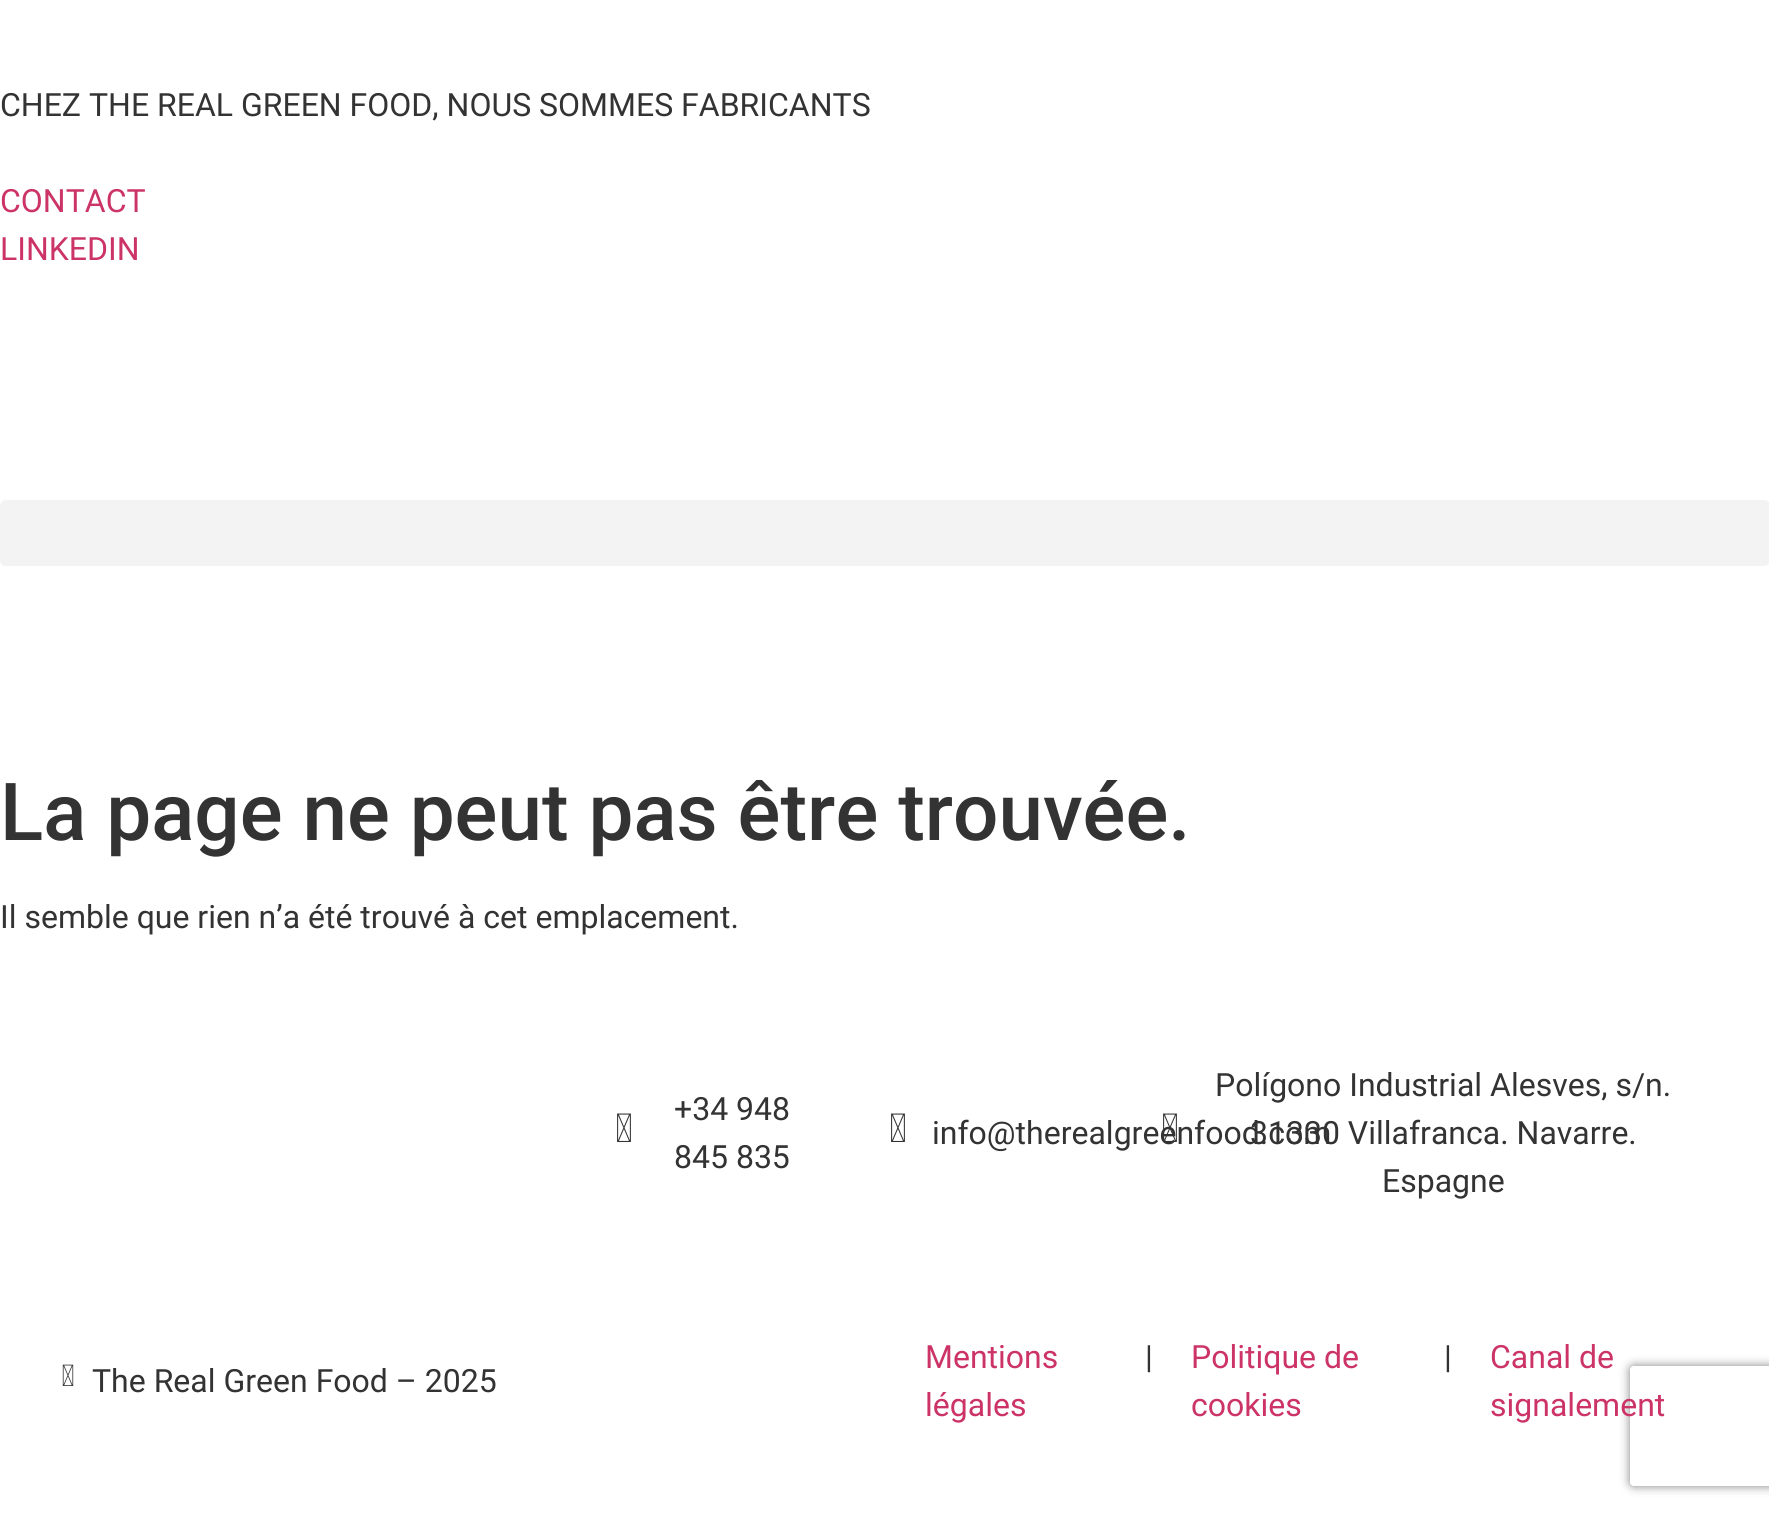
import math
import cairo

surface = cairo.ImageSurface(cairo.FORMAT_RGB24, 1769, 1514)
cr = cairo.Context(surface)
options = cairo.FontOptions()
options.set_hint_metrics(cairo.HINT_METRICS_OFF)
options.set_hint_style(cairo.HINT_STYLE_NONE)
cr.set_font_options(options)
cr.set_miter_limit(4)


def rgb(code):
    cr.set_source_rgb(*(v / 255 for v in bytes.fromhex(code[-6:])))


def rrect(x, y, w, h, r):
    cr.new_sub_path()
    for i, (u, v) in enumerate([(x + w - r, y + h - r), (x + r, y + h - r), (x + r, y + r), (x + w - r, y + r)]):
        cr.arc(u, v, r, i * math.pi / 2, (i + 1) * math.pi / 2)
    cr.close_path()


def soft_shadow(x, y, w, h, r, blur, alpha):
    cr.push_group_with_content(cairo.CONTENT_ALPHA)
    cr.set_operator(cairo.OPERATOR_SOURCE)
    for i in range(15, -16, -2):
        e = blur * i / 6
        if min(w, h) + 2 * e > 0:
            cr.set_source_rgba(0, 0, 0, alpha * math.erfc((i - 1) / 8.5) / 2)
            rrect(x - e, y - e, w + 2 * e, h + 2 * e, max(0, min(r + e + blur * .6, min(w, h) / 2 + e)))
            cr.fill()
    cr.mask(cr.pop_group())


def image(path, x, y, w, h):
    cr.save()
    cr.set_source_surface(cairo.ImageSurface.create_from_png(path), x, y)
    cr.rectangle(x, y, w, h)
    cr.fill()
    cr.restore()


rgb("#ffffff")
cr.paint()
rgb("#f3f3f3")
rrect(0, 500, 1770, 66, 6)
cr.fill()
image("img/1.png", 617, 1113, 14, 29)
image("img/1.png", 891, 1113, 14, 29)
image("img/3.png", 62, 1364, 12, 22)
cr.save()
cr.set_fill_rule(cairo.FILL_RULE_EVEN_ODD)
cr.new_path()
cr.move_to(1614, 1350)
cr.line_to(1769, 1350)
cr.line_to(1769, 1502)
cr.line_to(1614, 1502)
cr.close_path()
cr.move_to(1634, 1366)
cr.line_to(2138, 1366)
cr.curve_to(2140, 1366, 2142, 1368, 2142, 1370)
cr.line_to(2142, 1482)
cr.curve_to(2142, 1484, 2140, 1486, 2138, 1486)
cr.line_to(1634, 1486)
cr.curve_to(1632, 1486, 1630, 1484, 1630, 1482)
cr.line_to(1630, 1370)
cr.curve_to(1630, 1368, 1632, 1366, 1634, 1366)
cr.close_path()
cr.clip()
rgb("#808080")
soft_shadow(1630, 1366, 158, 120, 4, 5, 1)
cr.restore()
cr.select_font_face("Roboto")
cr.set_font_size(32)
rgb("#333333")
cr.move_to(0, 116)
cr.show_text("CHEZ THE REAL GREEN FOOD, NOUS SOMMES FABRICANTS")
rgb("#cc3366")
cr.move_to(0, 212)
cr.show_text("CONTACT")
cr.move_to(0, 260)
cr.show_text("LINKEDIN")
cr.select_font_face("Roboto Medium")
cr.set_font_size(80)
rgb("#333333")
cr.move_to(0, 840)
cr.show_text("La page ne peut pas être trouvée.")
cr.select_font_face("Roboto")
cr.set_font_size(32)
for x, y, s in [
    (0, 928, "Il semble que rien n’a été trouvé à cet emplacement."),
    (674, 1120, "+34 948"),
    (674, 1168, "845 835"),
    (932, 1144, "info@therealgreenfood.com"),
]:
    cr.move_to(x, y)
    cr.show_text(s)
image("img/2.png", 1163, 1113, 14, 29)
for x, y, s in [
    (1215, 1096, "Polígono Industrial Alesves, s/n."),
    (1250, 1144, "31330 Villafranca. Navarre."),
    (1382, 1192, "Espagne"),
    (92, 1392, "The Real Green Food – 2025"),
]:
    cr.move_to(x, y)
    cr.show_text(s)
rgb("#cc3366")
cr.move_to(925, 1368)
cr.show_text("Mentions")
cr.move_to(925, 1416)
cr.show_text("légales")
rgb("#333333")
cr.move_to(1145, 1368)
cr.show_text("|")
rgb("#cc3366")
cr.move_to(1191, 1368)
cr.show_text("Politique de")
cr.move_to(1191, 1416)
cr.show_text("cookies")
rgb("#333333")
cr.move_to(1444, 1368)
cr.show_text("|")
rgb("#cc3366")
cr.move_to(1490, 1368)
cr.show_text("Canal de")
cr.move_to(1490, 1416)
cr.show_text("signalement")
surface.write_to_png("page.png")
